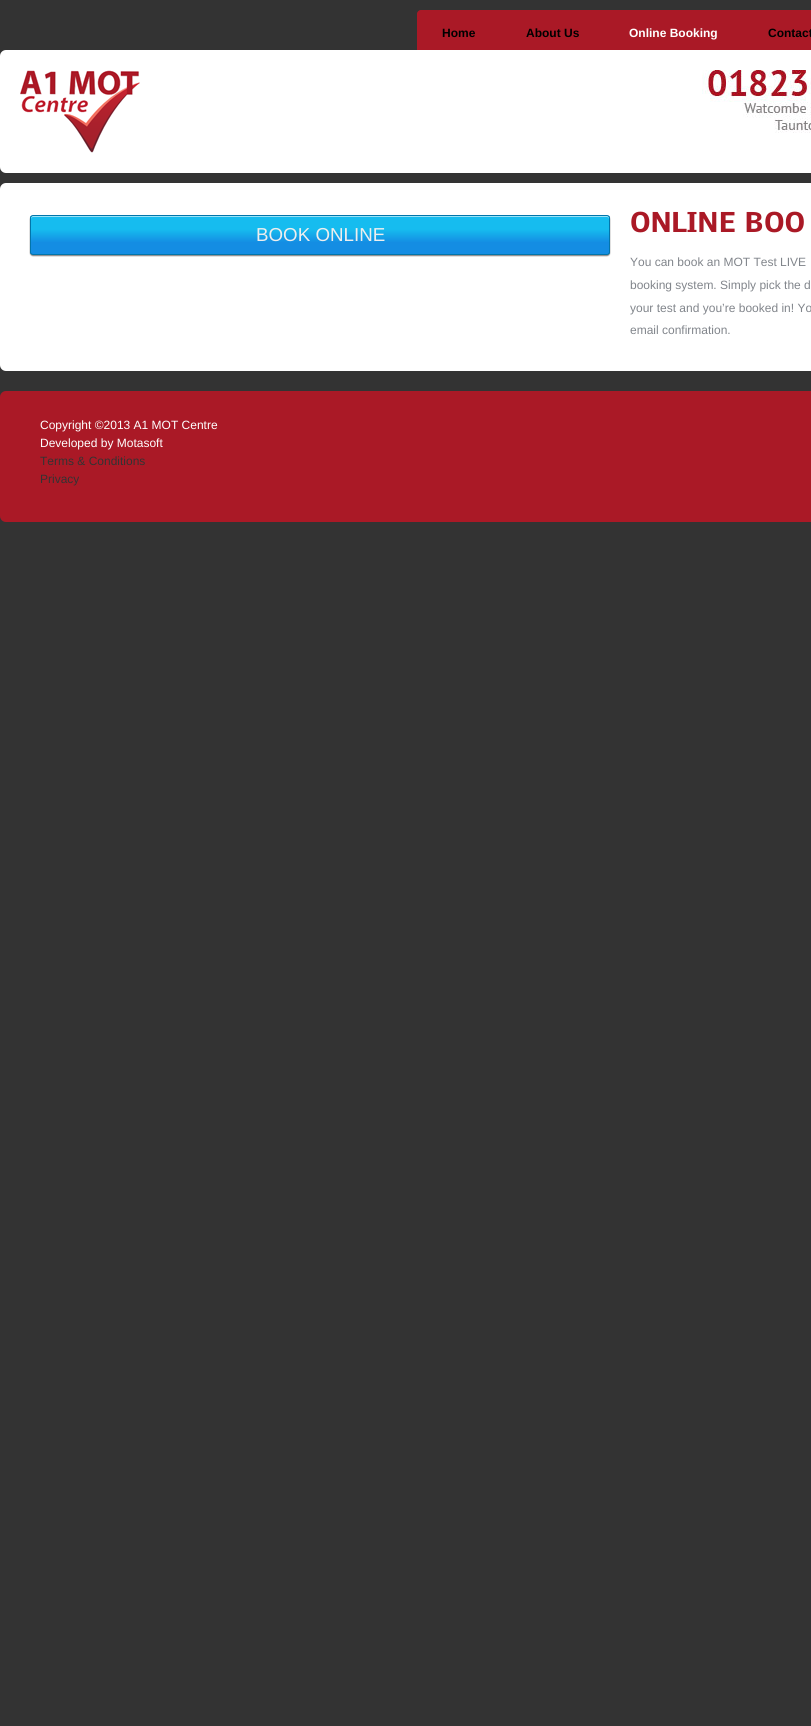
import math
import cairo

surface = cairo.ImageSurface(cairo.FORMAT_RGB24, 811, 1726)
cr = cairo.Context(surface)
options = cairo.FontOptions()
options.set_hint_metrics(cairo.HINT_METRICS_OFF)
options.set_hint_style(cairo.HINT_STYLE_NONE)
cr.set_font_options(options)
cr.set_miter_limit(4)


def rgb(code):
    cr.set_source_rgb(*(v / 255 for v in bytes.fromhex(code[-6:])))


def rrect(x, y, w, h, r):
    cr.new_sub_path()
    for i, (u, v) in enumerate([(x + w - r, y + h - r), (x + r, y + h - r), (x + r, y + r), (x + w - r, y + r)]):
        cr.arc(u, v, r, i * math.pi / 2, (i + 1) * math.pi / 2)
    cr.close_path()


def soft_shadow(x, y, w, h, r, blur, alpha):
    cr.push_group_with_content(cairo.CONTENT_ALPHA)
    cr.set_operator(cairo.OPERATOR_SOURCE)
    for i in range(15, -16, -2):
        e = blur * i / 6
        if min(w, h) + 2 * e > 0:
            cr.set_source_rgba(0, 0, 0, alpha * math.erfc((i - 1) / 8.5) / 2)
            rrect(x - e, y - e, w + 2 * e, h + 2 * e, max(0, min(r + e + blur * .6, min(w, h) / 2 + e)))
            cr.fill()
    cr.mask(cr.pop_group())


def image(path, x, y, w, h):
    cr.save()
    cr.set_source_surface(cairo.ImageSurface.create_from_png(path), x, y)
    cr.rectangle(x, y, w, h)
    cr.fill()
    cr.restore()


rgb("#333333")
cr.paint()
rgb("#aa1926")
rrect(417, 10, 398, 46, 4)
cr.fill()
rgb("#ffffff")
rrect(0, 50, 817, 123, 6)
cr.fill()
image("img/1.png", 702, 70, 109, 63)
image("img/2.png", 20, 70, 120, 83)
rrect(0, 183, 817, 188, 6)
cr.fill()
rgb("#858585")
soft_shadow(30, 216, 580, 40, 3, 0.5, 1)
cr.save()
rrect(30, 215, 580, 40, 3)
cr.clip()
gradient = cairo.LinearGradient(31, 254, 31, 216)
gradient.add_color_stop_rgba(0.3, 0.078, 0.553, 0.89, 1)
gradient.add_color_stop_rgba(0.65, 0.086, 0.737, 0.937, 1)
cr.set_source(gradient)
cr.rectangle(30, 216, 580, 38)
cr.fill()
cr.restore()
rgb("#99e3f8")
cr.new_path()
cr.move_to(33, 217)
cr.line_to(607, 217)
cr.curve_to(608, 217, 609, 218, 609, 219)
cr.curve_to(609, 218, 609, 216, 607, 216)
cr.line_to(33, 216)
cr.curve_to(31, 216, 31, 218, 31, 219)
cr.curve_to(31, 218, 32, 217, 33, 217)
cr.close_path()
cr.fill()
rrect(30.5, 215.5, 579, 39, 2.5)
rgb("#0275aa")
cr.set_line_width(1)
cr.stroke()
rgb("#aa1926")
rrect(0, 391, 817, 131, 6)
cr.fill()
cr.select_font_face("Liberation Sans", cairo.FONT_SLANT_NORMAL, cairo.FONT_WEIGHT_BOLD)
cr.set_font_size(12)
rgb("#000000")
cr.move_to(442, 37)
cr.show_text("Home")
cr.move_to(526, 37)
cr.show_text("About Us")
rgb("#ffffff")
cr.move_to(629, 37)
cr.show_text("Online Booking")
rgb("#000000")
cr.move_to(768, 37)
cr.show_text("Contact")
cr.select_font_face("Liberation Sans")
cr.set_font_size(18.75)
rgb("#eeeeee")
cr.move_to(256, 241)
cr.show_text("BOOK ONLINE")
cr.select_font_face("Nobile", cairo.FONT_SLANT_NORMAL, cairo.FONT_WEIGHT_BOLD)
cr.set_font_size(26)
rgb("#aa1926")
cr.move_to(630, 232)
cr.show_text("ONLINE BOO")
cr.select_font_face("Liberation Sans")
cr.set_font_size(12)
rgb("#81858b")
for x, y, s in [
    (630, 266, "You can book an MOT Test LIVE"),
    (630, 289, "booking system. Simply pick the d"),
    (630, 312, "your test and you’re booked in! Yo"),
    (630, 334, "email confirmation."),
]:
    cr.move_to(x, y)
    cr.show_text(s)
rgb("#ffffff")
cr.move_to(40, 429)
cr.show_text("Copyright ©2013 A1 MOT Centre")
cr.move_to(40, 447)
cr.show_text("Developed by Motasoft")
rgb("#333333")
cr.move_to(40, 465)
cr.show_text("Terms & Conditions")
cr.move_to(40, 483)
cr.show_text("Privacy")
surface.write_to_png("page.png")
